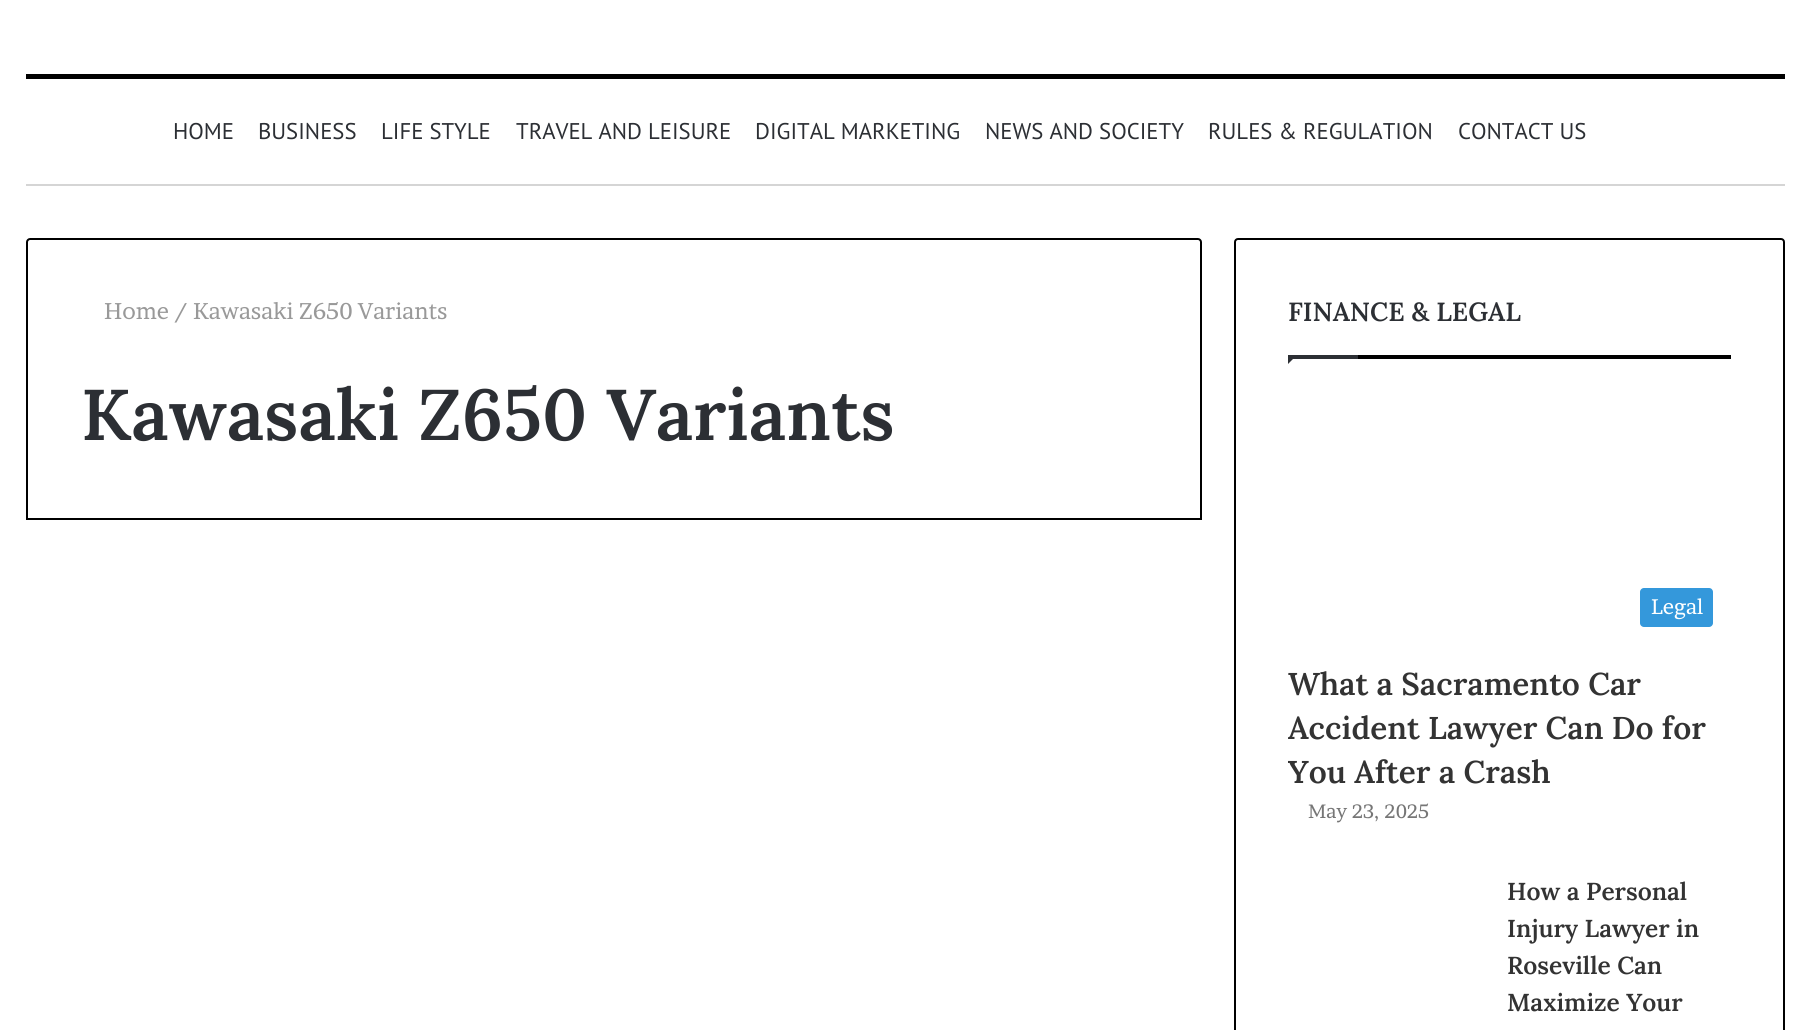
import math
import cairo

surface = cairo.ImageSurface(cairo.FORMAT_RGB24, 1811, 1030)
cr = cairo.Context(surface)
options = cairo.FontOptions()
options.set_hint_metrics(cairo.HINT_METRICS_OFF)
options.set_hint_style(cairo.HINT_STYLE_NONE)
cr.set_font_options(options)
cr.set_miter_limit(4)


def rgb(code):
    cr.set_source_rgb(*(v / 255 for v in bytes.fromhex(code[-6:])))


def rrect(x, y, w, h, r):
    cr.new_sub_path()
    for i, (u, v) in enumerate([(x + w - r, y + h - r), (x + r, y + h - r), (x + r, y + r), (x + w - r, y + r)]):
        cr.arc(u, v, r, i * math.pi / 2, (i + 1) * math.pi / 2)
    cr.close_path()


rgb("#ffffff")
cr.paint()
rgb("#000000")
cr.rectangle(26, 74, 1759, 5)
cr.fill()
rgb("#d5d5d5")
cr.rectangle(26, 184, 1759, 2)
cr.fill()
cr.new_path()
cr.move_to(30, 239)
cr.line_to(1198, 239)
cr.curve_to(1199.5, 239, 1201, 240.5, 1201, 242)
cr.line_to(1201, 519)
cr.line_to(27, 519)
cr.line_to(27, 242)
cr.curve_to(27, 240.5, 28.5, 239, 30, 239)
cr.close_path()
rgb("#000000")
cr.stroke()
rrect(1235, 239, 549, 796, 3)
cr.stroke()
cr.rectangle(1358, 355, 373, 4)
cr.fill()
rgb("#2c2f34")
cr.new_path()
cr.move_to(1288, 355)
cr.line_to(1297, 355)
cr.line_to(1288, 364)
cr.close_path()
cr.fill()
cr.rectangle(1288, 355, 70, 4)
cr.fill()
rgb("#3498db")
rrect(1640, 588, 73, 39, 4)
cr.fill()
cr.select_font_face("PT Sans")
cr.set_font_size(22.75)
rgb("#2c2f34")
for x, y, s in [
    (173, 139, "HOME"),
    (258, 139, "BUSINESS"),
    (381, 139, "LIFE STYLE"),
    (516, 139, "TRAVEL AND LEISURE"),
    (755, 139, "DIGITAL MARKETING"),
    (985, 139, "NEWS AND SOCIETY"),
    (1208, 139, "RULES & REGULATION"),
    (1458, 139, "CONTACT US"),
]:
    cr.move_to(x, y)
    cr.show_text(s)
cr.select_font_face("Brawler")
rgb("#999999")
for x, y, s in [
    (104, 319, "Home"),
    (174, 319, "/"),
    (193, 319, "Kawasaki Z650 Variants"),
]:
    cr.move_to(x, y)
    cr.show_text(s)
cr.select_font_face("Lora SemiBold")
cr.set_font_size(71.75)
rgb("#2c2f34")
cr.move_to(81, 440)
cr.show_text("Kawasaki Z650 Variants")
cr.set_font_size(26.25)
cr.move_to(1288, 321)
cr.show_text("FINANCE & LEGAL")
cr.select_font_face("Brawler")
cr.set_font_size(21)
rgb("#ffffff")
cr.move_to(1651, 614)
cr.show_text("Legal")
cr.select_font_face("Lora SemiBold")
cr.set_font_size(31.5)
rgb("#333333")
for x, y, s in [
    (1288, 695, "What a Sacramento Car"),
    (1288, 739, "Accident Lawyer Can Do for"),
    (1288, 783, "You After a Crash"),
]:
    cr.move_to(x, y)
    cr.show_text(s)
cr.select_font_face("Brawler")
cr.set_font_size(19.25)
rgb("#767676")
cr.move_to(1308, 818)
cr.show_text("May 23, 2025")
cr.select_font_face("Lora SemiBold")
cr.set_font_size(24.5)
rgb("#333333")
for x, y, s in [
    (1507, 900, "How a Personal"),
    (1507, 937, "Injury Lawyer in"),
    (1507, 974, "Roseville Can"),
    (1507, 1011, "Maximize Your"),
]:
    cr.move_to(x, y)
    cr.show_text(s)
surface.write_to_png("page.png")
